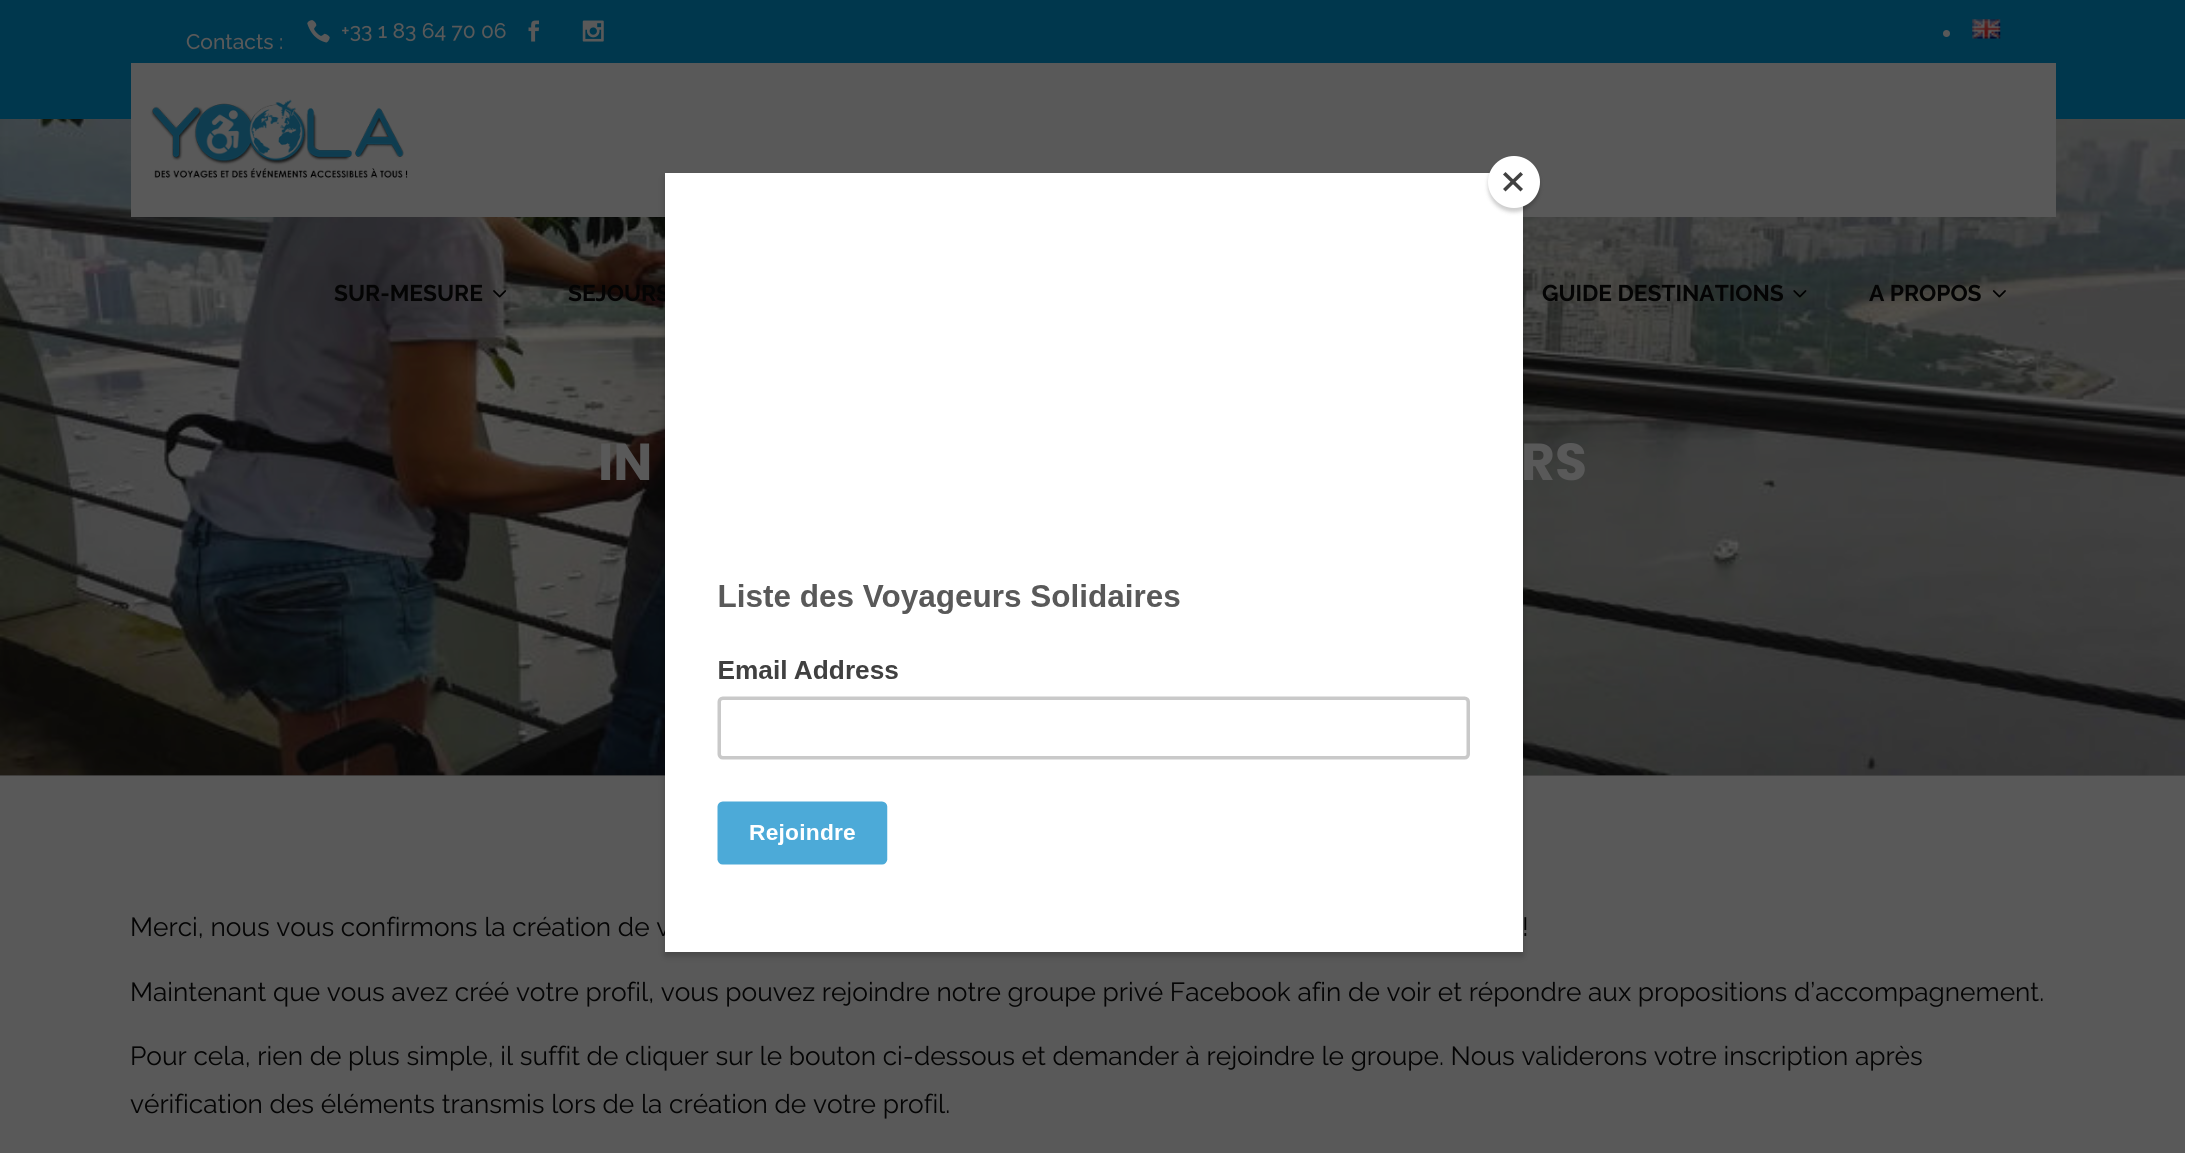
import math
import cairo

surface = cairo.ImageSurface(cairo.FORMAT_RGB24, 2185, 1153)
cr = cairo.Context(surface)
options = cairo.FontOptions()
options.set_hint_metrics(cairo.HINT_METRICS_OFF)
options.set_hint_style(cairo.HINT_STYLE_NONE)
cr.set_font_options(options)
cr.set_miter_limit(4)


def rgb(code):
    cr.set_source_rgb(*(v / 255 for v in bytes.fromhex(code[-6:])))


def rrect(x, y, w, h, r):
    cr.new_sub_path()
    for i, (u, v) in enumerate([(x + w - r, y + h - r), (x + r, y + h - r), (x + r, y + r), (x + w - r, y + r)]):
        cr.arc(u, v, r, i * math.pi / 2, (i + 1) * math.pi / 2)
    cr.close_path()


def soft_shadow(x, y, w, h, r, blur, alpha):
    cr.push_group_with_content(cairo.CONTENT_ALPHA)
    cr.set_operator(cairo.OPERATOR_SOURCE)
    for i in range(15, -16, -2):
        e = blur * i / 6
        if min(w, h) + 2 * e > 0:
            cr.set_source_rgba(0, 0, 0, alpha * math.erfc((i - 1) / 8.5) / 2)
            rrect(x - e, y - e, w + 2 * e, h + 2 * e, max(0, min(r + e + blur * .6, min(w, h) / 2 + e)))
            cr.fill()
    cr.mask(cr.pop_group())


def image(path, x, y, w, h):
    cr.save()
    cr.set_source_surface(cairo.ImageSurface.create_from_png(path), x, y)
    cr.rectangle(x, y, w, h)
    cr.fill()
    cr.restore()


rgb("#595959")
cr.paint()
rgb("#00374d")
cr.rectangle(0, 0, 2185, 119)
cr.fill()
image("img/1.png", 307, 20, 23, 23)
image("img/2.png", 528, 20, 11, 22)
image("img/3.png", 582, 20, 22, 22)
rgb("#595959")
cr.arc(1946.5, 33.5, 3.5, 0, 2 * math.pi)
cr.fill()
image("img/4.png", 1972, 19, 29, 20)
image("img/9.png", 0, 775, 2185, 1)
image("img/10.png", 0, 119, 2185, 657)
cr.rectangle(131, 63, 1925, 154)
cr.fill()
image("img/5.png", 150, 99, 258, 79)
image("img/6.png", 493, 290, 14, 8)
image("img/7.png", 1793, 290, 14, 8)
image("img/8.png", 1992, 290, 14, 8)
rgb("#000000")
soft_shadow(665, 177, 858, 779, 0, 3.5, 0.2)
cr.select_font_face("Raleway Medium")
cr.set_font_size(21)
rgb("#595959")
cr.move_to(186, 49)
cr.show_text("Contacts :")
cr.move_to(341, 38)
cr.show_text("+33 1 83 64 70 06")
cr.select_font_face("Raleway", cairo.FONT_SLANT_NORMAL, cairo.FONT_WEIGHT_BOLD)
cr.set_font_size(22.75)
rgb("#040404")
for x, y, s in [
    (334, 301, "SUR-MESURE"),
    (568, 301, "SEJOURS"),
    (1542, 301, "GUIDE DESTINATIONS"),
    (1869, 301, "A PROPOS"),
]:
    cr.move_to(x, y)
    cr.show_text(s)
cr.select_font_face("Poppins", cairo.FONT_SLANT_NORMAL, cairo.FONT_WEIGHT_BOLD)
cr.set_font_size(52)
rgb("#595959")
cr.move_to(598, 480)
cr.show_text("IN")
cr.move_to(1521, 480)
cr.show_text("RS")
cr.select_font_face("Raleway")
cr.set_font_size(26.25)
rgb("#040404")
for x, y, s in [
    (130, 936, "Merci, nous vous confirmons la création de v"),
    (1522, 936, "!"),
    (130, 1001, "Maintenant que vous avez créé votre profil, vous pouvez rejoindre notre groupe privé Facebook afin de voir et répondre aux propositions d’accompagnement."),
    (130, 1065, "Pour cela, rien de plus simple, il suffit de cliquer sur le bouton ci-dessous et demander à rejoindre le groupe. Nous validerons votre inscription après"),
    (130, 1113, "vérification des éléments transmis lors de la création de votre profil."),
]:
    cr.move_to(x, y)
    cr.show_text(s)
image("img/11.png", 665, 173, 858, 779)
rgb("#000000")
soft_shadow(1488, 159, 52, 53, 26, 2, 0.2)
rgb("#ffffff")
cr.arc(1514, 182, 26, 0, 2 * math.pi)
cr.fill()
rgb("#414141")
cr.new_path()
cr.move_to(1520.5, 172)
cr.line_to(1523, 174.5)
cr.line_to(1505.5, 191.5)
cr.line_to(1503, 189)
cr.close_path()
cr.fill()
cr.new_path()
cr.move_to(1503, 174.5)
cr.line_to(1505.5, 172)
cr.line_to(1523, 189)
cr.line_to(1520.5, 191.5)
cr.close_path()
cr.fill()
surface.write_to_png("page.png")
